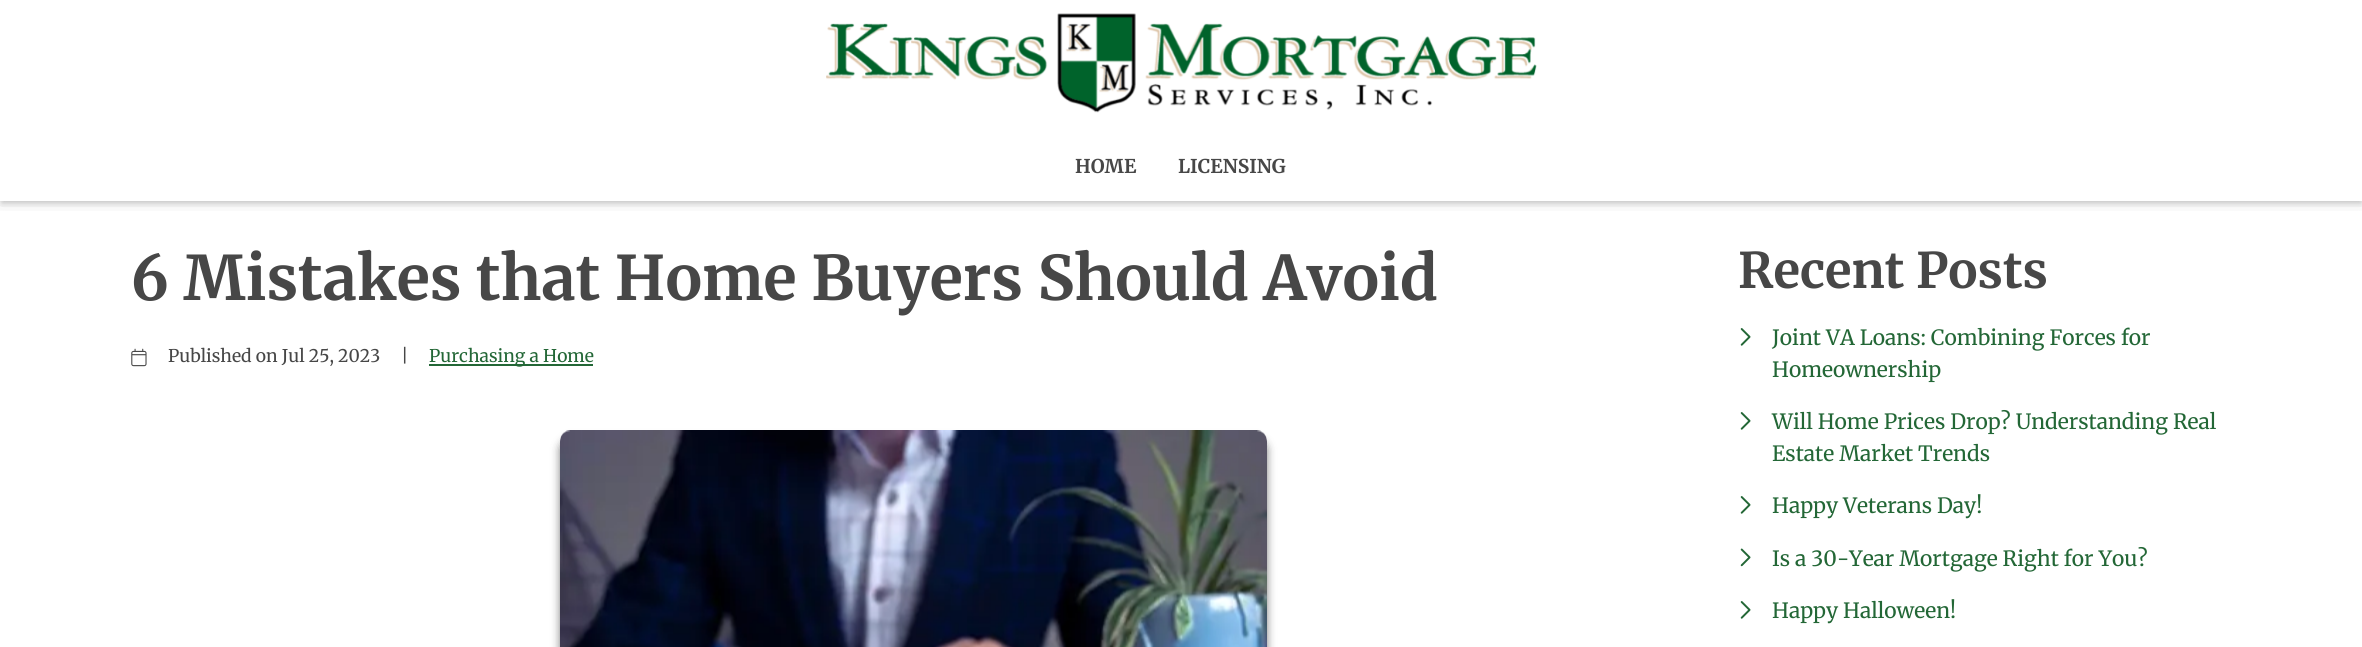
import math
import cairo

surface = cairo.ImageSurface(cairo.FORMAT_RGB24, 2362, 647)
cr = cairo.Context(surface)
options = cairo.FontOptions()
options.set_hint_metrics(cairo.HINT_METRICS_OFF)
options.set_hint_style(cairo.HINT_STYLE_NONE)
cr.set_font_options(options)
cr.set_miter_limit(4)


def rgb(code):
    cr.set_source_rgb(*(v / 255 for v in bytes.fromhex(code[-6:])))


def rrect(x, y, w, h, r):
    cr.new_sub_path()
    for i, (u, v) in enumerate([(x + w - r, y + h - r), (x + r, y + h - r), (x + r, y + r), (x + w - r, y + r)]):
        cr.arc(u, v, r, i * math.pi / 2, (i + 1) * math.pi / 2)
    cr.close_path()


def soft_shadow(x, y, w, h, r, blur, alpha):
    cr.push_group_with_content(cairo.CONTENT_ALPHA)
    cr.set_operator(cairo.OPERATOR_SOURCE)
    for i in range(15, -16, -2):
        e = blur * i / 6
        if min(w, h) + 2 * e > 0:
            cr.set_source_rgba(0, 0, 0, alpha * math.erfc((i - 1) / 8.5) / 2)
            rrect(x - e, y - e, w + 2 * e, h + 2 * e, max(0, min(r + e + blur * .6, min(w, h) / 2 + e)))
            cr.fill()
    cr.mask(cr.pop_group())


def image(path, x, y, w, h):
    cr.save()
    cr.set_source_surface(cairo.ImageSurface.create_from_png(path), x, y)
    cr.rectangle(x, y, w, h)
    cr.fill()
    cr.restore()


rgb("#ffffff")
cr.paint()
cr.save()
cr.rectangle(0, 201, 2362, 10)
cr.clip()
rgb("#000000")
soft_shadow(0, 2, 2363, 201, 0, 9, 0.1)
cr.restore()
cr.save()
cr.rectangle(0, 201, 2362, 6)
cr.clip()
rgb("#000000")
soft_shadow(2, 5, 2359, 198, 0, 3.5, 0.2)
cr.restore()
image("img/1.png", 826, 13, 711, 100)
image("img/2.png", 131, 348, 16, 19)
rgb("#236736")
cr.rectangle(429, 364, 164, 2)
cr.fill()
rgb("#000000")
soft_shadow(560, 439, 707, 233, 11, 4.5, 0.5)
image("img/3.png", 560, 430, 707, 217)
image("img/4.png", 1740, 328, 11, 18)
image("img/4.png", 1740, 412, 11, 18)
image("img/4.png", 1740, 496, 11, 18)
image("img/5.png", 1740, 548, 11, 19)
image("img/4.png", 1740, 601, 11, 18)
cr.select_font_face("Merriweather", cairo.FONT_SLANT_NORMAL, cairo.FONT_WEIGHT_BOLD)
cr.set_font_size(19)
rgb("#474747")
cr.move_to(1075, 173)
cr.show_text("HOME")
cr.move_to(1178, 173)
cr.show_text("LICENSING")
cr.set_font_size(61.25)
cr.move_to(131, 300)
cr.show_text("6 Mistakes that Home Buyers Should Avoid")
cr.select_font_face("Merriweather")
cr.set_font_size(17.5)
cr.move_to(168, 362)
cr.show_text("Published on Jul 25, 2023")
cr.move_to(401, 362)
cr.show_text("|")
rgb("#236736")
cr.move_to(429, 362)
cr.show_text("Purchasing a Home")
cr.select_font_face("Merriweather", cairo.FONT_SLANT_NORMAL, cairo.FONT_WEIGHT_BOLD)
cr.set_font_size(49)
rgb("#474747")
cr.move_to(1738, 288)
cr.show_text("Recent Posts")
cr.select_font_face("Merriweather")
cr.set_font_size(21)
rgb("#236736")
for x, y, s in [
    (1772, 345, "Joint VA Loans: Combining Forces for"),
    (1772, 377, "Homeownership"),
    (1772, 429, "Will Home Prices Drop? Understanding Real"),
    (1772, 461, "Estate Market Trends"),
    (1772, 513, "Happy Veterans Day!"),
    (1772, 566, "Is a 30-Year Mortgage Right for You?"),
    (1772, 618, "Happy Halloween!"),
]:
    cr.move_to(x, y)
    cr.show_text(s)
surface.write_to_png("page.png")
